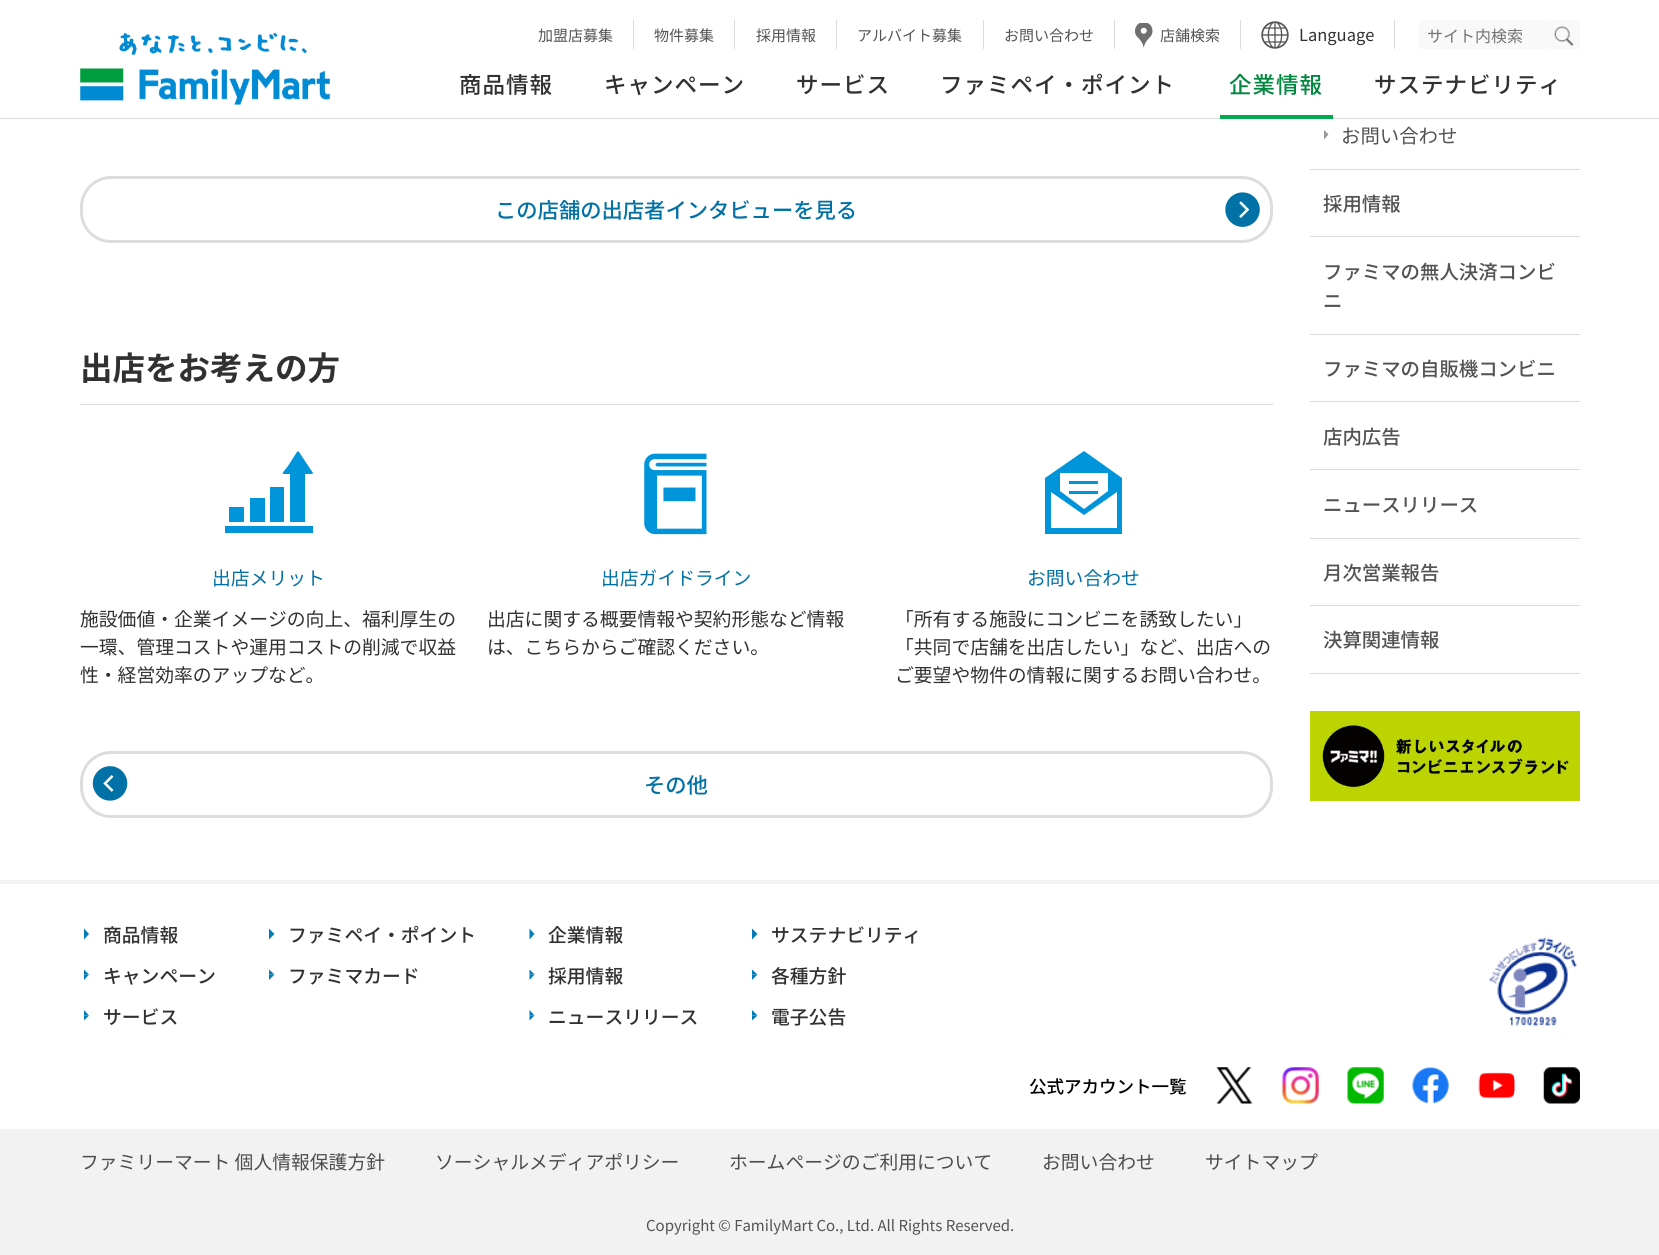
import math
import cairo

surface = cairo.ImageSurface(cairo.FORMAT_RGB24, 1659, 1255)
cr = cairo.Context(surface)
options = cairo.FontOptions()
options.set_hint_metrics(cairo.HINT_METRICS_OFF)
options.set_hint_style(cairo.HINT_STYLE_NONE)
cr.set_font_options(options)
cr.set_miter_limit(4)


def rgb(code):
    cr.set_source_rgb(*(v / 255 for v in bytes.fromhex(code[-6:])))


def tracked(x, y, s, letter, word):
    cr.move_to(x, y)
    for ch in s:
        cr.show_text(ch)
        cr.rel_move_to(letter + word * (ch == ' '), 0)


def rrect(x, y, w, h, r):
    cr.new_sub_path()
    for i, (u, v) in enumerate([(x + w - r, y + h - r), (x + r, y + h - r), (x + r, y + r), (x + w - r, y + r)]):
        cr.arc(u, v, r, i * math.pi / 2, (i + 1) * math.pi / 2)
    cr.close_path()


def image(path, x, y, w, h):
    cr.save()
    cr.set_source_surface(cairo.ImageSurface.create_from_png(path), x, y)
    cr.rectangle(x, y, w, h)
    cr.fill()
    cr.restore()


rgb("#ffffff")
cr.paint()
for x, y, w, h, color in [
    (633, 20, 1, 30, "#dbdbdb"),
    (734, 20, 1, 30, "#dbdbdb"),
    (836, 20, 1, 30, "#dbdbdb"),
    (983, 20, 1, 30, "#dbdbdb"),
    (1114, 20, 1, 30, "#dbdbdb"),
]:
    rgb(color)
    cr.rectangle(x, y, w, h)
    cr.fill()
image("img/1.png", 1135, 23, 18, 25)
cr.rectangle(1240, 20, 1, 30)
cr.fill()
image("img/2.png", 1261, 21, 28, 28)
cr.rectangle(1394, 20, 1, 29)
cr.fill()
rgb("#f9f9f9")
rrect(1418, 20, 132, 29, 4)
cr.fill()
cr.rectangle(1550, 20, 30, 29)
cr.fill()
image("img/3.png", 1554, 26, 20, 21)
rgb("#ffffff")
cr.rectangle(633, 49, 608, 1)
cr.fill()
rgb("#dcdcdc")
cr.rectangle(0, 118, 1659, 1)
cr.fill()
image("img/4.png", 80, 32, 250, 73)
rgb("#00ab4e")
cr.rectangle(1220, 115, 113, 4)
cr.fill()
rrect(81.5, 177.5, 1190, 64, 29.5)
rgb("#dddddd")
cr.set_line_width(3)
cr.stroke()
image("img/5.png", 1225, 192, 35, 35)
rgb("#dcdcdc")
cr.rectangle(80, 404, 1193, 1)
cr.fill()
rgb("#0095da")
cr.new_path()
cr.move_to(250, 498)
cr.line_to(265, 498)
cr.line_to(265, 522)
cr.line_to(250, 522)
cr.close_path()
cr.move_to(270, 487)
cr.line_to(284, 487)
cr.line_to(284, 522)
cr.line_to(270, 522)
cr.close_path()
cr.move_to(229, 507)
cr.line_to(244, 507)
cr.line_to(244, 522)
cr.line_to(229, 522)
cr.close_path()
cr.move_to(313, 473)
cr.line_to(301, 455)
cr.curve_to(298, 450, 298, 450, 295, 455)
cr.line_to(288, 466)
cr.curve_to(281, 475, 280, 474, 290, 474)
cr.line_to(290, 522)
cr.line_to(305, 522)
cr.line_to(305, 474)
cr.line_to(310, 474)
cr.curve_to(312, 474, 313, 474, 313, 473)
cr.close_path()
cr.move_to(225, 526)
cr.line_to(313, 526)
cr.line_to(313, 533)
cr.line_to(225, 533)
cr.close_path()
cr.fill()
image("img/6.png", 644, 453, 63, 82)
cr.new_path()
cr.move_to(1084, 451)
cr.line_to(1045, 478)
cr.line_to(1045, 534)
cr.line_to(1122, 534)
cr.line_to(1122, 478)
cr.close_path()
cr.move_to(1117, 528)
cr.line_to(1051, 528)
cr.line_to(1051, 492)
cr.line_to(1084, 515)
cr.line_to(1117, 492)
cr.close_path()
cr.move_to(1084, 509)
cr.line_to(1060, 491)
cr.line_to(1060, 473)
cr.line_to(1108, 473)
cr.line_to(1108, 491)
cr.close_path()
cr.move_to(1069, 481)
cr.line_to(1098, 481)
cr.line_to(1098, 484)
cr.line_to(1069, 484)
cr.close_path()
cr.move_to(1069, 491)
cr.line_to(1098, 491)
cr.line_to(1098, 494)
cr.line_to(1069, 494)
cr.close_path()
cr.fill()
rrect(81.5, 752.5, 1190, 64, 29.5)
rgb("#dddddd")
cr.stroke()
image("img/7.png", 92, 766, 36, 35)
rgb("#dcdcdc")
cr.rectangle(1310, 169, 270, 1)
cr.fill()
rgb("#999999")
cr.new_path()
cr.move_to(1324, 130)
cr.line_to(1328.5, 134.5)
cr.line_to(1324, 139.5)
cr.close_path()
cr.fill()
for x, y, w, h, color in [
    (1310, 236, 270, 1, "#dcdcdc"),
    (1310, 334, 270, 1, "#dcdcdc"),
    (1310, 401, 270, 1, "#dcdcdc"),
    (1310, 469, 270, 1, "#dcdcdc"),
    (1310, 538, 270, 1, "#dcdcdc"),
    (1310, 605, 270, 1, "#dcdcdc"),
    (1310, 673, 270, 1, "#dcdcdc"),
]:
    rgb(color)
    cr.rectangle(x, y, w, h)
    cr.fill()
image("img/8.png", 1310, 711, 270, 90)
rgb("#f2f2f2")
cr.rectangle(0, 880, 1659, 4)
cr.fill()
rgb("#007db8")
cr.new_path()
cr.move_to(89, 934)
cr.line_to(84, 939.5)
cr.line_to(84, 934)
cr.close_path()
cr.move_to(84, 928.5)
cr.line_to(89, 934)
cr.line_to(84, 934)
cr.close_path()
cr.fill()
cr.new_path()
cr.move_to(89, 974.5)
cr.line_to(84, 980)
cr.line_to(84, 974.5)
cr.close_path()
cr.fill()
cr.new_path()
cr.move_to(84, 969.5)
cr.line_to(89, 974.5)
cr.line_to(84, 974.5)
cr.close_path()
cr.fill()
cr.new_path()
cr.move_to(89, 1015.5)
cr.line_to(84, 1020.5)
cr.line_to(84, 1015.5)
cr.close_path()
cr.fill()
cr.new_path()
cr.move_to(84, 1010)
cr.line_to(89, 1015.5)
cr.line_to(84, 1015.5)
cr.close_path()
cr.fill()
cr.new_path()
cr.move_to(274.5, 934)
cr.line_to(269, 939.5)
cr.line_to(269, 934)
cr.close_path()
cr.move_to(269, 928.5)
cr.line_to(274.5, 934)
cr.line_to(269, 934)
cr.close_path()
cr.fill()
cr.new_path()
cr.move_to(274.5, 974.5)
cr.line_to(269, 980)
cr.line_to(269, 974.5)
cr.close_path()
cr.fill()
cr.new_path()
cr.move_to(269, 969.5)
cr.line_to(274.5, 974.5)
cr.line_to(269, 974.5)
cr.close_path()
cr.fill()
cr.new_path()
cr.move_to(534.5, 934)
cr.line_to(529.5, 939.5)
cr.line_to(529.5, 934)
cr.close_path()
cr.move_to(529.5, 928.5)
cr.line_to(534.5, 934)
cr.line_to(529.5, 934)
cr.close_path()
cr.fill()
cr.new_path()
cr.move_to(534.5, 974.5)
cr.line_to(529.5, 980)
cr.line_to(529.5, 974.5)
cr.close_path()
cr.fill()
cr.new_path()
cr.move_to(529.5, 969.5)
cr.line_to(534.5, 974.5)
cr.line_to(529.5, 974.5)
cr.close_path()
cr.fill()
cr.new_path()
cr.move_to(534.5, 1015.5)
cr.line_to(529.5, 1020.5)
cr.line_to(529.5, 1015.5)
cr.close_path()
cr.fill()
cr.new_path()
cr.move_to(529.5, 1010)
cr.line_to(534.5, 1015.5)
cr.line_to(529.5, 1015.5)
cr.close_path()
cr.fill()
cr.new_path()
cr.move_to(757.5, 934)
cr.line_to(752, 939.5)
cr.line_to(752, 934)
cr.close_path()
cr.move_to(752, 928.5)
cr.line_to(757.5, 934)
cr.line_to(752, 934)
cr.close_path()
cr.fill()
cr.new_path()
cr.move_to(757.5, 974.5)
cr.line_to(752, 980)
cr.line_to(752, 974.5)
cr.close_path()
cr.fill()
cr.new_path()
cr.move_to(752, 969.5)
cr.line_to(757.5, 974.5)
cr.line_to(752, 974.5)
cr.close_path()
cr.fill()
cr.new_path()
cr.move_to(757.5, 1015.5)
cr.line_to(752, 1020.5)
cr.line_to(752, 1015.5)
cr.close_path()
cr.fill()
cr.new_path()
cr.move_to(752, 1010)
cr.line_to(757.5, 1015.5)
cr.line_to(752, 1015.5)
cr.close_path()
cr.fill()
image("img/9.png", 1488, 937, 89, 90)
image("img/10.png", 1216, 1067, 37, 37)
image("img/11.png", 1282, 1067, 37, 37)
image("img/12.png", 1347, 1067, 37, 37)
image("img/13.png", 1412, 1067, 37, 37)
image("img/14.png", 1478, 1072, 37, 27)
image("img/15.png", 1543, 1067, 37, 37)
rgb("#f2f2f2")
cr.rectangle(0, 1129, 1659, 126)
cr.fill()
cr.select_font_face("Noto Sans JP")
cr.set_font_size(15)
rgb("#535353")
for x, y, s in [
    (538, 41, "加盟店募集"),
    (654, 41, "物件募集"),
    (756, 41, "採用情報"),
    (857, 41, "アルバイト募集"),
    (1004, 41, "お問い合わせ"),
    (1160, 41, "店舗検索"),
]:
    cr.move_to(x, y)
    cr.show_text(s)
cr.set_font_size(16.5)
rgb("#313131")
cr.move_to(1299, 41)
cr.show_text("Language")
cr.set_font_size(16)
rgb("#737373")
cr.move_to(1427, 42)
cr.show_text("サイト内検索")
cr.select_font_face("Noto Sans JP Medium")
cr.set_font_size(22.5)
rgb("#313131")
for x, y, s in [
    (459, 93, "商品情報"),
    (604, 93, "キャンペーン"),
    (796, 93, "サービス"),
    (940, 93, "ファミペイ・ポイント"),
]:
    tracked(x, y, s, 1, 0)
rgb("#01873f")
tracked(1229, 93, "企業情報", 1, 0)
rgb("#313131")
tracked(1374, 93, "サステナビリティ", 1, 0)
cr.set_font_size(21.3)
rgb("#0171a6")
cr.move_to(495, 218)
cr.show_text("この店舗の出店者インタビューを見る")
cr.select_font_face("Noto Sans JP", cairo.FONT_SLANT_NORMAL, cairo.FONT_WEIGHT_BOLD)
cr.set_font_size(32.5)
rgb("#313131")
cr.move_to(80, 380)
cr.show_text("出店をお考えの方")
cr.select_font_face("Noto Sans JP")
cr.set_font_size(18.8)
rgb("#0171a6")
cr.move_to(212, 585)
cr.show_text("出店メリット")
rgb("#313131")
for x, y, s in [
    (80, 626, "施設価値・企業イメージの向上、福利厚生の"),
    (80, 654, "一環、管理コストや運用コストの削減で収益"),
    (80, 682, "性・経営効率のアップなど。"),
]:
    cr.move_to(x, y)
    cr.show_text(s)
rgb("#0171a6")
cr.move_to(601, 585)
cr.show_text("出店ガイドライン")
rgb("#313131")
cr.move_to(487, 626)
cr.show_text("出店に関する概要情報や契約形態など情報")
cr.move_to(487, 654)
cr.show_text("は、こちらからご確認ください。")
rgb("#0171a6")
cr.move_to(1027, 585)
cr.show_text("お問い合わせ")
rgb("#313131")
for x, y, s in [
    (895, 626, "「所有する施設にコンビニを誘致したい」"),
    (895, 654, "「共同で店舗を出店したい」など、出店への"),
    (895, 682, "ご要望や物件の情報に関するお問い合わせ。"),
]:
    cr.move_to(x, y)
    cr.show_text(s)
cr.select_font_face("Noto Sans JP Medium")
cr.set_font_size(21.3)
rgb("#0171a6")
cr.move_to(644, 793)
cr.show_text("その他")
cr.select_font_face("Noto Sans JP")
cr.set_font_size(19.4)
rgb("#535353")
cr.move_to(1341, 143)
cr.show_text("お問い合わせ")
cr.select_font_face("Noto Sans JP Medium")
for x, y, s in [
    (1323, 211, "採用情報"),
    (1323, 279, "ファミマの無人決済コンビ"),
    (1323, 308, "ニ"),
    (1323, 376, "ファミマの自販機コンビニ"),
    (1323, 444, "店内広告"),
    (1323, 512, "ニュースリリース"),
    (1323, 580, "月次営業報告"),
    (1323, 647, "決算関連情報"),
]:
    cr.move_to(x, y)
    cr.show_text(s)
cr.set_font_size(18.8)
rgb("#313131")
for x, y, s in [
    (103, 942, "商品情報"),
    (103, 983, "キャンペーン"),
    (103, 1024, "サービス"),
    (288, 942, "ファミペイ・ポイント"),
    (288, 983, "ファミマカード"),
    (548, 942, "企業情報"),
    (548, 983, "採用情報"),
    (548, 1024, "ニュースリリース"),
    (771, 942, "サステナビリティ"),
    (771, 983, "各種方針"),
    (771, 1024, "電子公告"),
]:
    cr.move_to(x, y)
    cr.show_text(s)
cr.set_font_size(17.5)
rgb("#000000")
cr.move_to(1029, 1093)
cr.show_text("公式アカウント一覧")
cr.select_font_face("Noto Sans JP")
cr.set_font_size(18.8)
rgb("#4d4d4d")
for x, y, s in [
    (80, 1169, "ファミリーマート 個人情報保護方針"),
    (435, 1169, "ソーシャルメディアポリシー"),
    (729, 1169, "ホームページのご利用について"),
    (1042, 1169, "お問い合わせ"),
    (1205, 1169, "サイトマップ"),
]:
    cr.move_to(x, y)
    cr.show_text(s)
cr.set_font_size(15)
rgb("#535353")
cr.move_to(646, 1231)
cr.show_text("Copyright © FamilyMart Co., Ltd. All Rights Reserved.")
surface.write_to_png("page.png")
